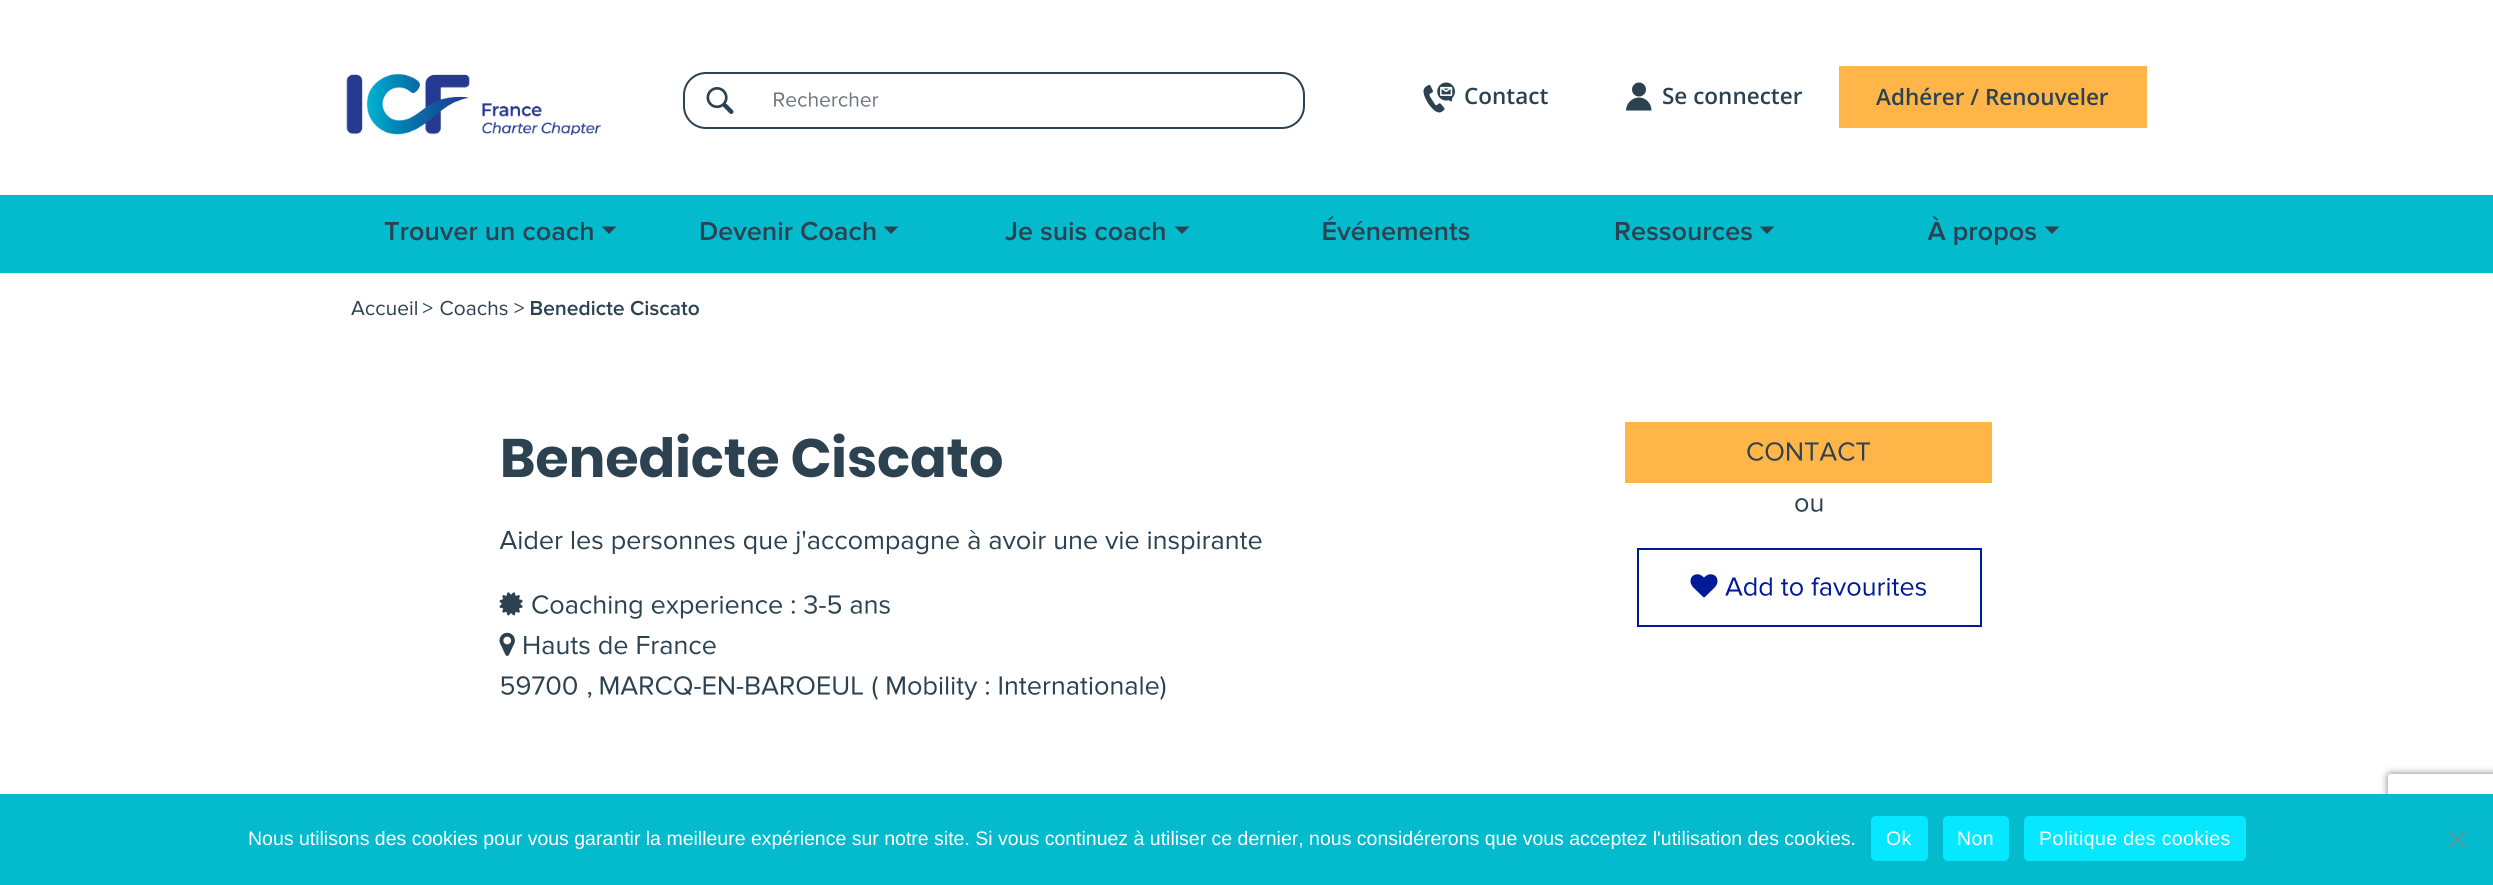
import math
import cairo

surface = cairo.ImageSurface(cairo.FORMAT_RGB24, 2493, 885)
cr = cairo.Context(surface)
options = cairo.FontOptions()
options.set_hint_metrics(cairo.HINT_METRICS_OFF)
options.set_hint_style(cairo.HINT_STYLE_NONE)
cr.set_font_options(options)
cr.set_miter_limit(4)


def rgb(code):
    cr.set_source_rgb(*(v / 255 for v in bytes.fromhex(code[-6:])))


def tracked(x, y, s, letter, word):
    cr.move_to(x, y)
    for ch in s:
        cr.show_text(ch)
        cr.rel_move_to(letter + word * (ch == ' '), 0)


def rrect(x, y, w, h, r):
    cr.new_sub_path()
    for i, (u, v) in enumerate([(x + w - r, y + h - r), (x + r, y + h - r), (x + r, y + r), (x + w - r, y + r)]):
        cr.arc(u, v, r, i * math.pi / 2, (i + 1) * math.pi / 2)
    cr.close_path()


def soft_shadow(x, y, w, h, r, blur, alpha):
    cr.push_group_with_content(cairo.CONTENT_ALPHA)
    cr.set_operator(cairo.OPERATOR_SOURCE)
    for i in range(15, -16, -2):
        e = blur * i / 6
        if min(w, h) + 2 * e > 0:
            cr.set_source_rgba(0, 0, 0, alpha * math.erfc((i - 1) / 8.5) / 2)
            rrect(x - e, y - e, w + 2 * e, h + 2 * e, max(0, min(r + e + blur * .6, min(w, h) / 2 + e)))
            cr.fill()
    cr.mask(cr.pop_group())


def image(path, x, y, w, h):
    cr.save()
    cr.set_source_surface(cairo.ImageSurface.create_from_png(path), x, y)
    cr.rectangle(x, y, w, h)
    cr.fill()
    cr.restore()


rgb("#ffffff")
cr.paint()
image("img/1.png", 346, 73, 255, 62)
rrect(684, 73, 620, 55, 22)
rgb("#2c4251")
cr.stroke()
image("img/2.png", 706, 87, 28, 27)
image("img/3.png", 774, 92, 105, 15)
image("img/4.png", 1423, 82, 32, 31)
cr.arc(1639, 89.5, 7, 0, 2 * math.pi)
cr.fill()
cr.set_fill_rule(cairo.FILL_RULE_EVEN_ODD)
cr.new_path()
cr.move_to(1639, 97.5)
cr.curve_to(1632, 97.5, 1626, 103.5, 1626, 110.5)
cr.line_to(1651.5, 110.5)
cr.curve_to(1651.5, 103.5, 1646, 97.5, 1639, 97.5)
cr.close_path()
cr.fill()
rgb("#ffb547")
cr.rectangle(1839, 66, 308, 62)
cr.fill()
rgb("#04bbcd")
cr.rectangle(0, 195, 2493, 78)
cr.fill()
image("img/5.png", 384, 222, 209, 19)
rgb("#2c4251")
cr.set_fill_rule(cairo.FILL_RULE_WINDING)
cr.new_path()
cr.move_to(601.5, 226.5)
cr.line_to(616.5, 226.5)
cr.line_to(609, 234)
cr.close_path()
cr.fill()
image("img/6.png", 700, 221, 176, 20)
cr.new_path()
cr.move_to(883.5, 226.5)
cr.line_to(898.5, 226.5)
cr.line_to(891, 234)
cr.close_path()
cr.fill()
image("img/7.png", 1005, 221, 160, 20)
cr.new_path()
cr.move_to(1174.5, 226.5)
cr.line_to(1189.5, 226.5)
cr.line_to(1182, 234)
cr.close_path()
cr.fill()
image("img/8.png", 1323, 216, 147, 25)
image("img/9.png", 1615, 222, 137, 19)
cr.new_path()
cr.move_to(1759.5, 226.5)
cr.line_to(1774.5, 226.5)
cr.line_to(1767, 234)
cr.close_path()
cr.fill()
image("img/10.png", 1927, 216, 109, 29)
cr.new_path()
cr.move_to(2044.5, 226.5)
cr.line_to(2059.5, 226.5)
cr.line_to(2052, 234)
cr.close_path()
cr.fill()
image("img/11.png", 351, 301, 66, 15)
image("img/12.png", 423, 302, 10, 11)
image("img/13.png", 440, 300, 68, 16)
image("img/14.png", 514, 302, 10, 11)
image("img/15.png", 531, 300, 168, 16)
image("img/16.png", 499, 530, 763, 25)
image("img/17.png", 499, 592, 24, 24)
image("img/18.png", 532, 595, 358, 24)
image("img/19.png", 499, 632, 16, 24)
image("img/20.png", 524, 636, 192, 19)
image("img/21.png", 501, 676, 76, 19)
image("img/22.png", 588, 691, 4, 7)
image("img/23.png", 600, 676, 263, 20)
image("img/24.png", 872, 676, 294, 24)
rgb("#ffb547")
cr.rectangle(1625, 422, 367, 61)
cr.fill()
image("img/25.png", 1747, 442, 123, 19)
image("img/26.png", 1795, 498, 28, 14)
cr.rectangle(1638, 549, 343, 77)
rgb("#001a98")
cr.stroke()
image("img/27.png", 1690, 574, 28, 24)
image("img/28.png", 1725, 577, 201, 19)
cr.save()
cr.set_fill_rule(cairo.FILL_RULE_EVEN_ODD)
cr.new_path()
cr.move_to(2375, 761)
cr.line_to(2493, 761)
cr.line_to(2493, 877)
cr.line_to(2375, 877)
cr.close_path()
cr.move_to(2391, 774)
cr.line_to(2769, 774)
cr.curve_to(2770.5, 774, 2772, 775.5, 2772, 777)
cr.line_to(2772, 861)
cr.curve_to(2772, 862.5, 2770.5, 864, 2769, 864)
cr.line_to(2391, 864)
cr.curve_to(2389.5, 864, 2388, 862.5, 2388, 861)
cr.line_to(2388, 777)
cr.curve_to(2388, 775.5, 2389.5, 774, 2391, 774)
cr.close_path()
cr.clip()
rgb("#808080")
soft_shadow(2388, 774, 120, 90, 3, 4, 1)
cr.restore()
rgb("#04bbcd")
cr.rectangle(0, 794, 2493, 91)
cr.fill()
rgb("#05e8ff")
rrect(1871, 816, 57, 45, 5)
cr.fill()
rrect(1943, 816, 66, 45, 5)
cr.fill()
rrect(2024, 816, 222, 45, 5)
cr.fill()
rgb("#429ea7")
cr.new_path()
cr.move_to(2464, 830.5)
cr.line_to(2466, 832.5)
cr.line_to(2450, 848.5)
cr.line_to(2448, 846.5)
cr.close_path()
cr.fill()
cr.new_path()
cr.move_to(2448, 832.5)
cr.line_to(2450, 830.5)
cr.line_to(2466, 846.5)
cr.line_to(2464, 848.5)
cr.close_path()
cr.fill()
cr.select_font_face("Open Sans SemiBold")
cr.set_font_size(22.5)
rgb("#2c4251")
for x, y, s in [
    (1464, 104, "Contact"),
    (1662, 104, "Se connecter"),
    (1876, 105, "Adhérer / Renouveler"),
]:
    cr.move_to(x, y)
    cr.show_text(s)
cr.select_font_face("Poppins", cairo.FONT_SLANT_NORMAL, cairo.FONT_WEIGHT_BOLD)
cr.set_font_size(54)
cr.move_to(500, 477)
cr.show_text("Benedicte Ciscato")
cr.select_font_face("Liberation Sans")
cr.set_font_size(19.5)
rgb("#ffffff")
cr.move_to(248, 845)
cr.show_text("Nous utilisons des cookies pour vous garantir la meilleure expérience sur notre site. Si vous continuez à utiliser ce dernier, nous considérerons que vous acceptez l'utilisation des cookies.")
for x, y, s in [
    (1886, 845, "Ok"),
    (1957, 845, "Non"),
    (2039, 845, "Politique des cookies"),
]:
    tracked(x, y, s, 0.4, 0)
surface.write_to_png("page.png")
